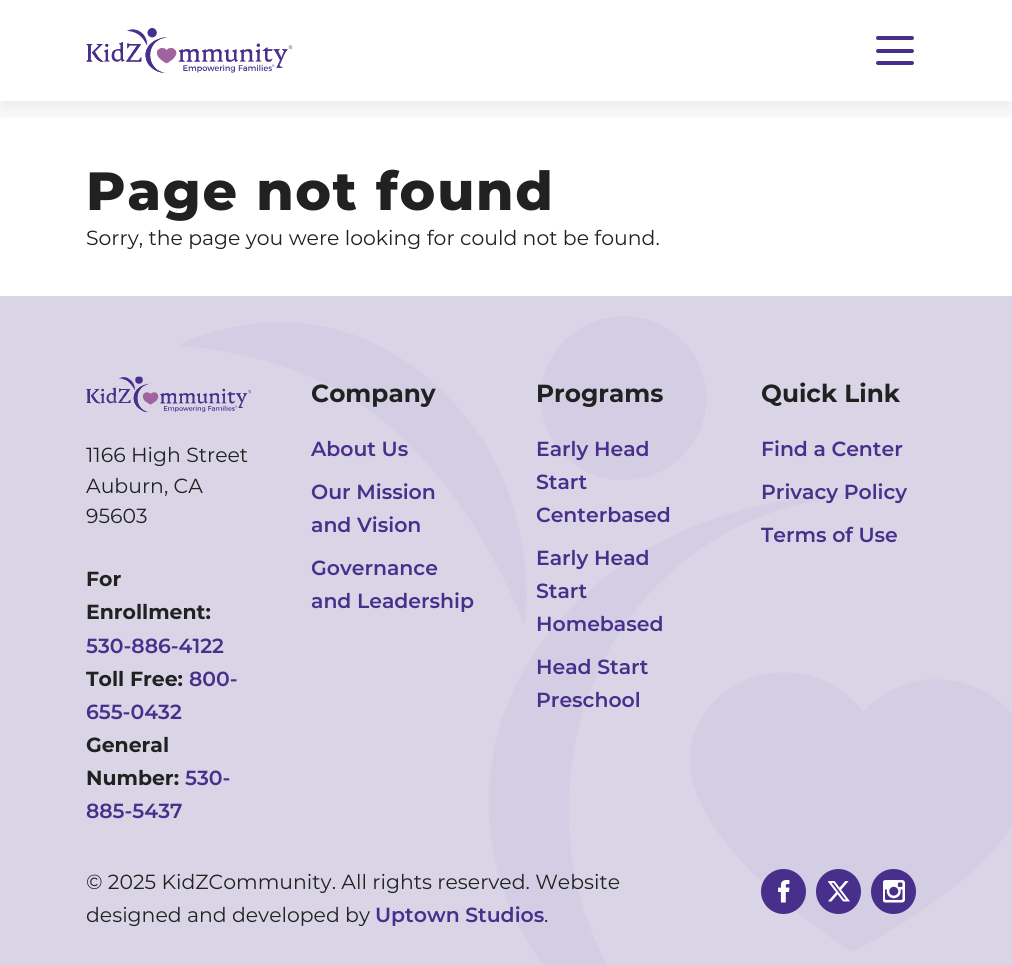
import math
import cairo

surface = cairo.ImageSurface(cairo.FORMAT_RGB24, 1012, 965)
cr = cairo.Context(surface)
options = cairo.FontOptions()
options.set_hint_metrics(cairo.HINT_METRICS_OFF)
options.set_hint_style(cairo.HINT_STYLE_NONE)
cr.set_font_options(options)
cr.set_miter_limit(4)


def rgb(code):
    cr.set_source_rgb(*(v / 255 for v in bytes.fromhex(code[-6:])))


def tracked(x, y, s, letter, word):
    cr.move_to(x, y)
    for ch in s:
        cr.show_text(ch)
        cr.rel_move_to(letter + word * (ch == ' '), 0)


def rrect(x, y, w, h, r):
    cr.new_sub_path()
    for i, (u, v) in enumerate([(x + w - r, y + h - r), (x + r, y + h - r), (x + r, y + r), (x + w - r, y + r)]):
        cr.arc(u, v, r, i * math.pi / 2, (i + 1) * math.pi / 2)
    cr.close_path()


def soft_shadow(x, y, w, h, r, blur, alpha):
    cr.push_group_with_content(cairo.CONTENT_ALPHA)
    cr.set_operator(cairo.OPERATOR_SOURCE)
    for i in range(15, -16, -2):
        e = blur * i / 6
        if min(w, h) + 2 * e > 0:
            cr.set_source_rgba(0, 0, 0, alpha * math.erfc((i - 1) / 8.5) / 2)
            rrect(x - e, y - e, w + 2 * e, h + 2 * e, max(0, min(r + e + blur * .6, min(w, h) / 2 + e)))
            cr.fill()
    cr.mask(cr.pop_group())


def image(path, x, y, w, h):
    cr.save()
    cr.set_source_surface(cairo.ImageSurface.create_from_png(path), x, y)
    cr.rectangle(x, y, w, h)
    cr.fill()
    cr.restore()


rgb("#ffffff")
cr.paint()
cr.save()
cr.rectangle(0, 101, 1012, 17)
cr.clip()
rgb("#000000")
soft_shadow(0, 10, 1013, 101, 0, 10, 0.08)
cr.restore()
image("img/1.png", 86, 28, 207, 46)
rgb("#482f8b")
rrect(876, 36, 38, 4, 2)
cr.fill()
rrect(876, 49, 38, 4, 2)
cr.fill()
rrect(876, 61, 38, 4, 2)
cr.fill()
rgb("#d9d5e6")
cr.rectangle(0, 296, 1012, 669)
cr.fill()
image("img/2.png", 179, 316, 833, 649)
image("img/3.png", 86, 376, 165, 37)
rgb("#482f8b")
cr.arc(783.5, 891.5, 22.5, 0, 2 * math.pi)
cr.fill()
image("img/4.png", 778, 880, 12, 23)
cr.arc(838.5, 891.5, 22.5, 0, 2 * math.pi)
cr.fill()
image("img/5.png", 828, 881, 22, 21)
cr.arc(893.5, 891.5, 22.5, 0, 2 * math.pi)
cr.fill()
image("img/6.png", 883, 880, 22, 23)
cr.select_font_face("Montserrat ExtraBold")
cr.set_font_size(53.75)
rgb("#212121")
tracked(86, 210, "Page not found", 1.75, 0)
cr.select_font_face("Montserrat")
cr.set_font_size(20.4)
for x, y, s in [
    (86, 245, "Sorry, the page you were looking for could not be found."),
    (86, 462, "1166 High Street"),
    (86, 493, "Auburn, CA"),
    (86, 523, "95603"),
]:
    cr.move_to(x, y)
    cr.show_text(s)
cr.select_font_face("Montserrat", cairo.FONT_SLANT_NORMAL, cairo.FONT_WEIGHT_BOLD)
cr.move_to(86, 586)
cr.show_text("For")
cr.move_to(86, 619)
cr.show_text("Enrollment:")
cr.select_font_face("Montserrat Thin")
rgb("#482f8b")
cr.move_to(86, 653)
cr.show_text("530-886-4122")
cr.select_font_face("Montserrat", cairo.FONT_SLANT_NORMAL, cairo.FONT_WEIGHT_BOLD)
rgb("#212121")
cr.move_to(86, 686)
cr.show_text("Toll Free:")
cr.select_font_face("Montserrat Thin")
rgb("#482f8b")
cr.move_to(189, 686)
cr.show_text("800-")
cr.move_to(86, 719)
cr.show_text("655-0432")
cr.select_font_face("Montserrat", cairo.FONT_SLANT_NORMAL, cairo.FONT_WEIGHT_BOLD)
rgb("#212121")
cr.move_to(86, 752)
cr.show_text("General")
cr.move_to(86, 785)
cr.show_text("Number:")
cr.select_font_face("Montserrat Thin")
rgb("#482f8b")
cr.move_to(185, 785)
cr.show_text("530-")
cr.move_to(86, 818)
cr.show_text("885-5437")
cr.select_font_face("Montserrat", cairo.FONT_SLANT_NORMAL, cairo.FONT_WEIGHT_BOLD)
cr.set_font_size(24.75)
rgb("#212121")
cr.move_to(311, 402)
cr.show_text("Company")
cr.select_font_face("Montserrat Thin")
cr.set_font_size(20.4)
rgb("#482f8b")
for x, y, s in [
    (311, 456, "About Us"),
    (311, 499, "Our Mission"),
    (311, 532, "and Vision"),
    (311, 575, "Governance"),
    (311, 608, "and Leadership"),
]:
    cr.move_to(x, y)
    cr.show_text(s)
cr.select_font_face("Montserrat", cairo.FONT_SLANT_NORMAL, cairo.FONT_WEIGHT_BOLD)
cr.set_font_size(24.75)
rgb("#212121")
cr.move_to(536, 402)
cr.show_text("Programs")
cr.select_font_face("Montserrat Thin")
cr.set_font_size(20.4)
rgb("#482f8b")
for x, y, s in [
    (536, 456, "Early Head"),
    (536, 489, "Start"),
    (536, 522, "Centerbased"),
    (536, 565, "Early Head"),
    (536, 598, "Start"),
    (536, 631, "Homebased"),
    (536, 674, "Head Start"),
    (536, 707, "Preschool"),
]:
    cr.move_to(x, y)
    cr.show_text(s)
cr.select_font_face("Montserrat", cairo.FONT_SLANT_NORMAL, cairo.FONT_WEIGHT_BOLD)
cr.set_font_size(24.75)
rgb("#212121")
cr.move_to(761, 402)
cr.show_text("Quick Link")
cr.select_font_face("Montserrat Thin")
cr.set_font_size(20.4)
rgb("#482f8b")
for x, y, s in [
    (761, 456, "Find a Center"),
    (761, 499, "Privacy Policy"),
    (761, 542, "Terms of Use"),
]:
    cr.move_to(x, y)
    cr.show_text(s)
cr.select_font_face("Montserrat")
rgb("#212121")
cr.move_to(86, 889)
cr.show_text("© 2025 KidZCommunity. All rights reserved. Website")
cr.move_to(86, 922)
cr.show_text("designed and developed by")
cr.select_font_face("Montserrat Thin")
rgb("#482f8b")
cr.move_to(375, 922)
cr.show_text("Uptown Studios")
cr.select_font_face("Montserrat")
rgb("#212121")
cr.move_to(544, 922)
cr.show_text(".")
surface.write_to_png("page.png")
